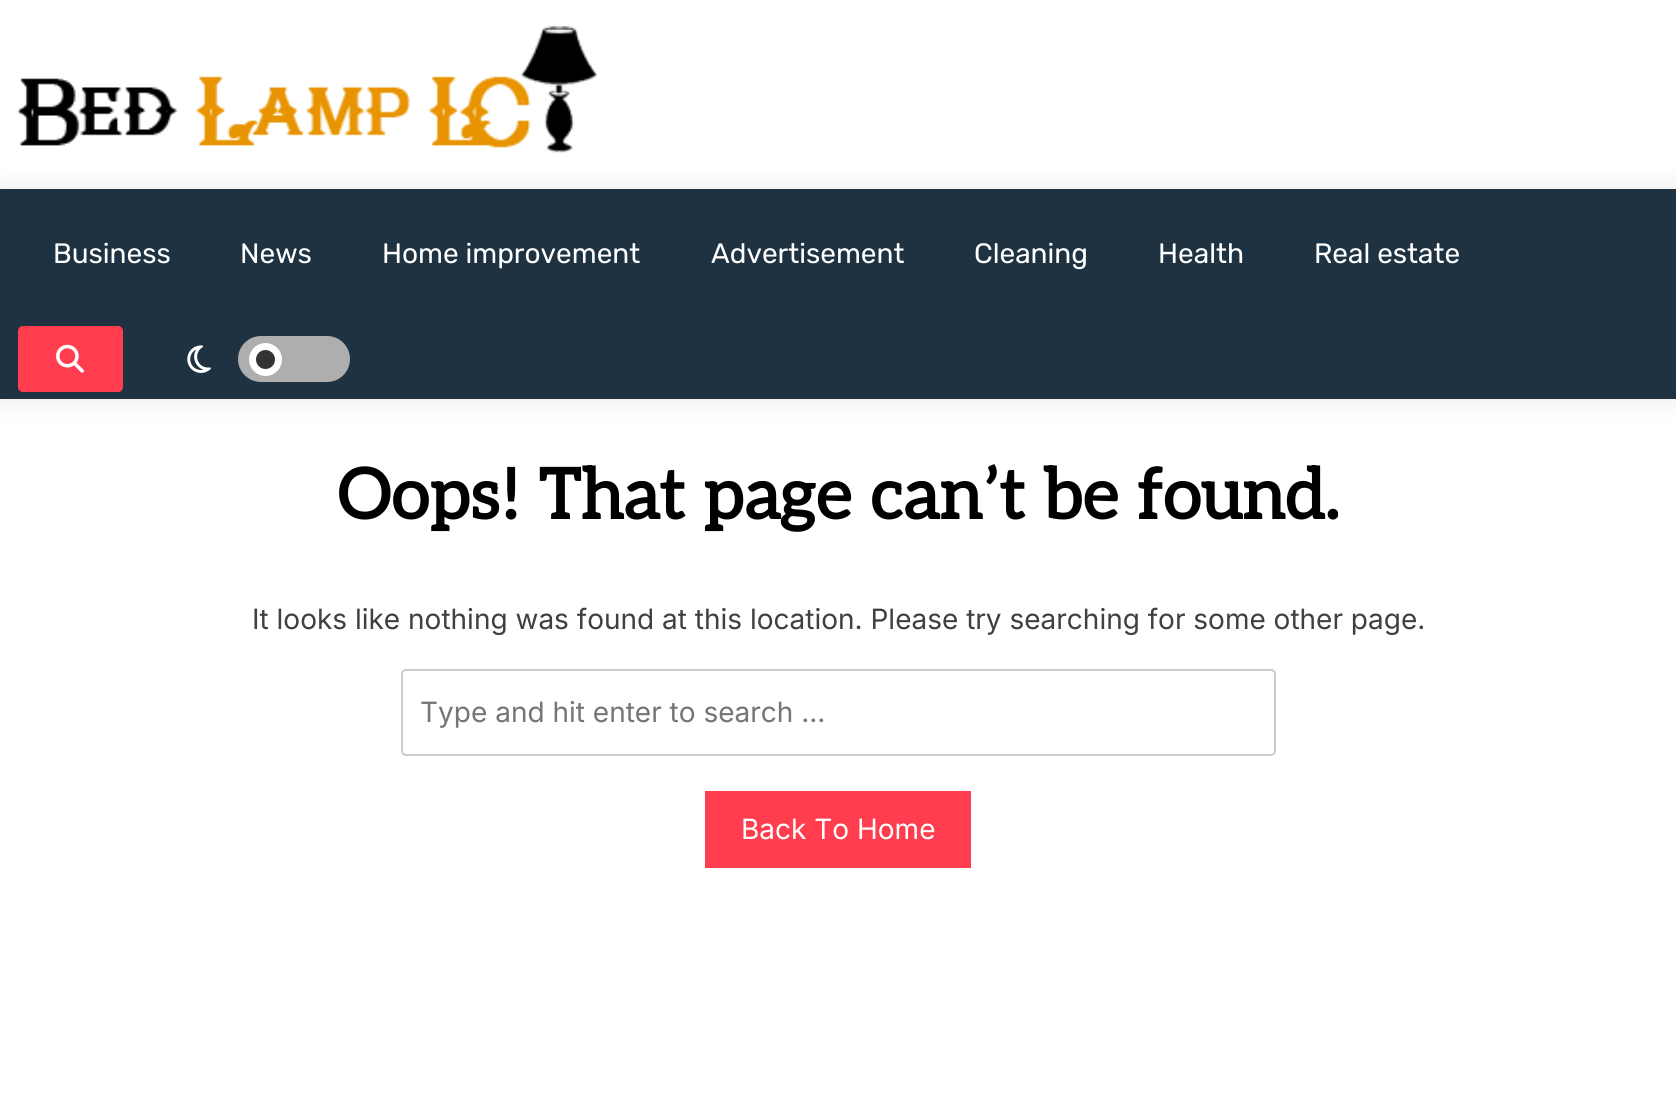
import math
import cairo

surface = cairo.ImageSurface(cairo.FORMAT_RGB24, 1676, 1097)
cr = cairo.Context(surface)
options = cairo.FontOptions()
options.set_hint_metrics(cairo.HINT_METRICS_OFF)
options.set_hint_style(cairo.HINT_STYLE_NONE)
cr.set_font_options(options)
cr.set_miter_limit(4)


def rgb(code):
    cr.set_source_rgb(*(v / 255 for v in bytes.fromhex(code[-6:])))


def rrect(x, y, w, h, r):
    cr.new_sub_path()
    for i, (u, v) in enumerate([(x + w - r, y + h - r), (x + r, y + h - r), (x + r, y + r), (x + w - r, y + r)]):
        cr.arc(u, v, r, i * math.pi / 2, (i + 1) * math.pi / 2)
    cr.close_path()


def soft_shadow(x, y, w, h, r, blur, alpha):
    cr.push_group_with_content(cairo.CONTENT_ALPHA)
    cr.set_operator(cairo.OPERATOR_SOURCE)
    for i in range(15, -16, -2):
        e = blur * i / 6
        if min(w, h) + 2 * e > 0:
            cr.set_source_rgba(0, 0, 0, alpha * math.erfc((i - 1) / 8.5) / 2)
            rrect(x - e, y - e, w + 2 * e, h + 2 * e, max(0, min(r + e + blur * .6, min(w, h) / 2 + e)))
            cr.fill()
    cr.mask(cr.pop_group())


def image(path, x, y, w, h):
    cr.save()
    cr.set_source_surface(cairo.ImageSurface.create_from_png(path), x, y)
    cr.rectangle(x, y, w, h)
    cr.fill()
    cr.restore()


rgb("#ffffff")
cr.paint()
rgb("#000000")
soft_shadow(0, 189, 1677, 210, 0, 13, 0.1)
image("img/1.png", 17, 26, 580, 127)
rgb("#1f3241")
cr.rectangle(0, 189, 1676, 210)
cr.fill()
rgb("#ff3d4f")
rrect(18, 326, 105, 66, 5)
cr.fill()
image("img/2.png", 56, 344, 28, 29)
image("img/3.png", 187, 345, 24, 28)
rgb("#aeaeae")
rrect(238, 336, 112, 46, 23)
cr.fill()
rgb("#333333")
cr.arc(265.5, 359.5, 13, 0, 2 * math.pi)
cr.fill_preserve()
rgb("#ffffff")
cr.set_line_width(7)
cr.stroke()
rrect(402, 670, 873, 85, 4)
rgb("#cccccc")
cr.set_line_width(2)
cr.stroke()
rgb("#ff3d4f")
cr.rectangle(705, 791, 266, 77)
cr.fill()
cr.select_font_face("Rubik Light")
cr.set_font_size(28)
rgb("#ffffff")
for x, y, s in [
    (53, 263, "Business"),
    (240, 263, "News"),
    (382, 263, "Home improvement"),
    (711, 263, "Advertisement"),
    (974, 263, "Cleaning"),
    (1158, 263, "Health"),
    (1314, 263, "Real estate"),
]:
    cr.move_to(x, y)
    cr.show_text(s)
cr.select_font_face("Aleo", cairo.FONT_SLANT_NORMAL, cairo.FONT_WEIGHT_BOLD)
cr.set_font_size(70)
rgb("#000000")
cr.move_to(337, 519)
cr.show_text("Oops! That page can’t be found.")
cr.select_font_face("Inter")
cr.set_font_size(28)
rgb("#404040")
cr.move_to(252, 629)
cr.show_text("It looks like nothing was found at this location. Please try searching for some other page.")
rgb("#757575")
cr.move_to(420, 722)
cr.show_text("Type and hit enter to search ...")
rgb("#ffffff")
cr.move_to(741, 839)
cr.show_text("Back To Home")
surface.write_to_png("page.png")
